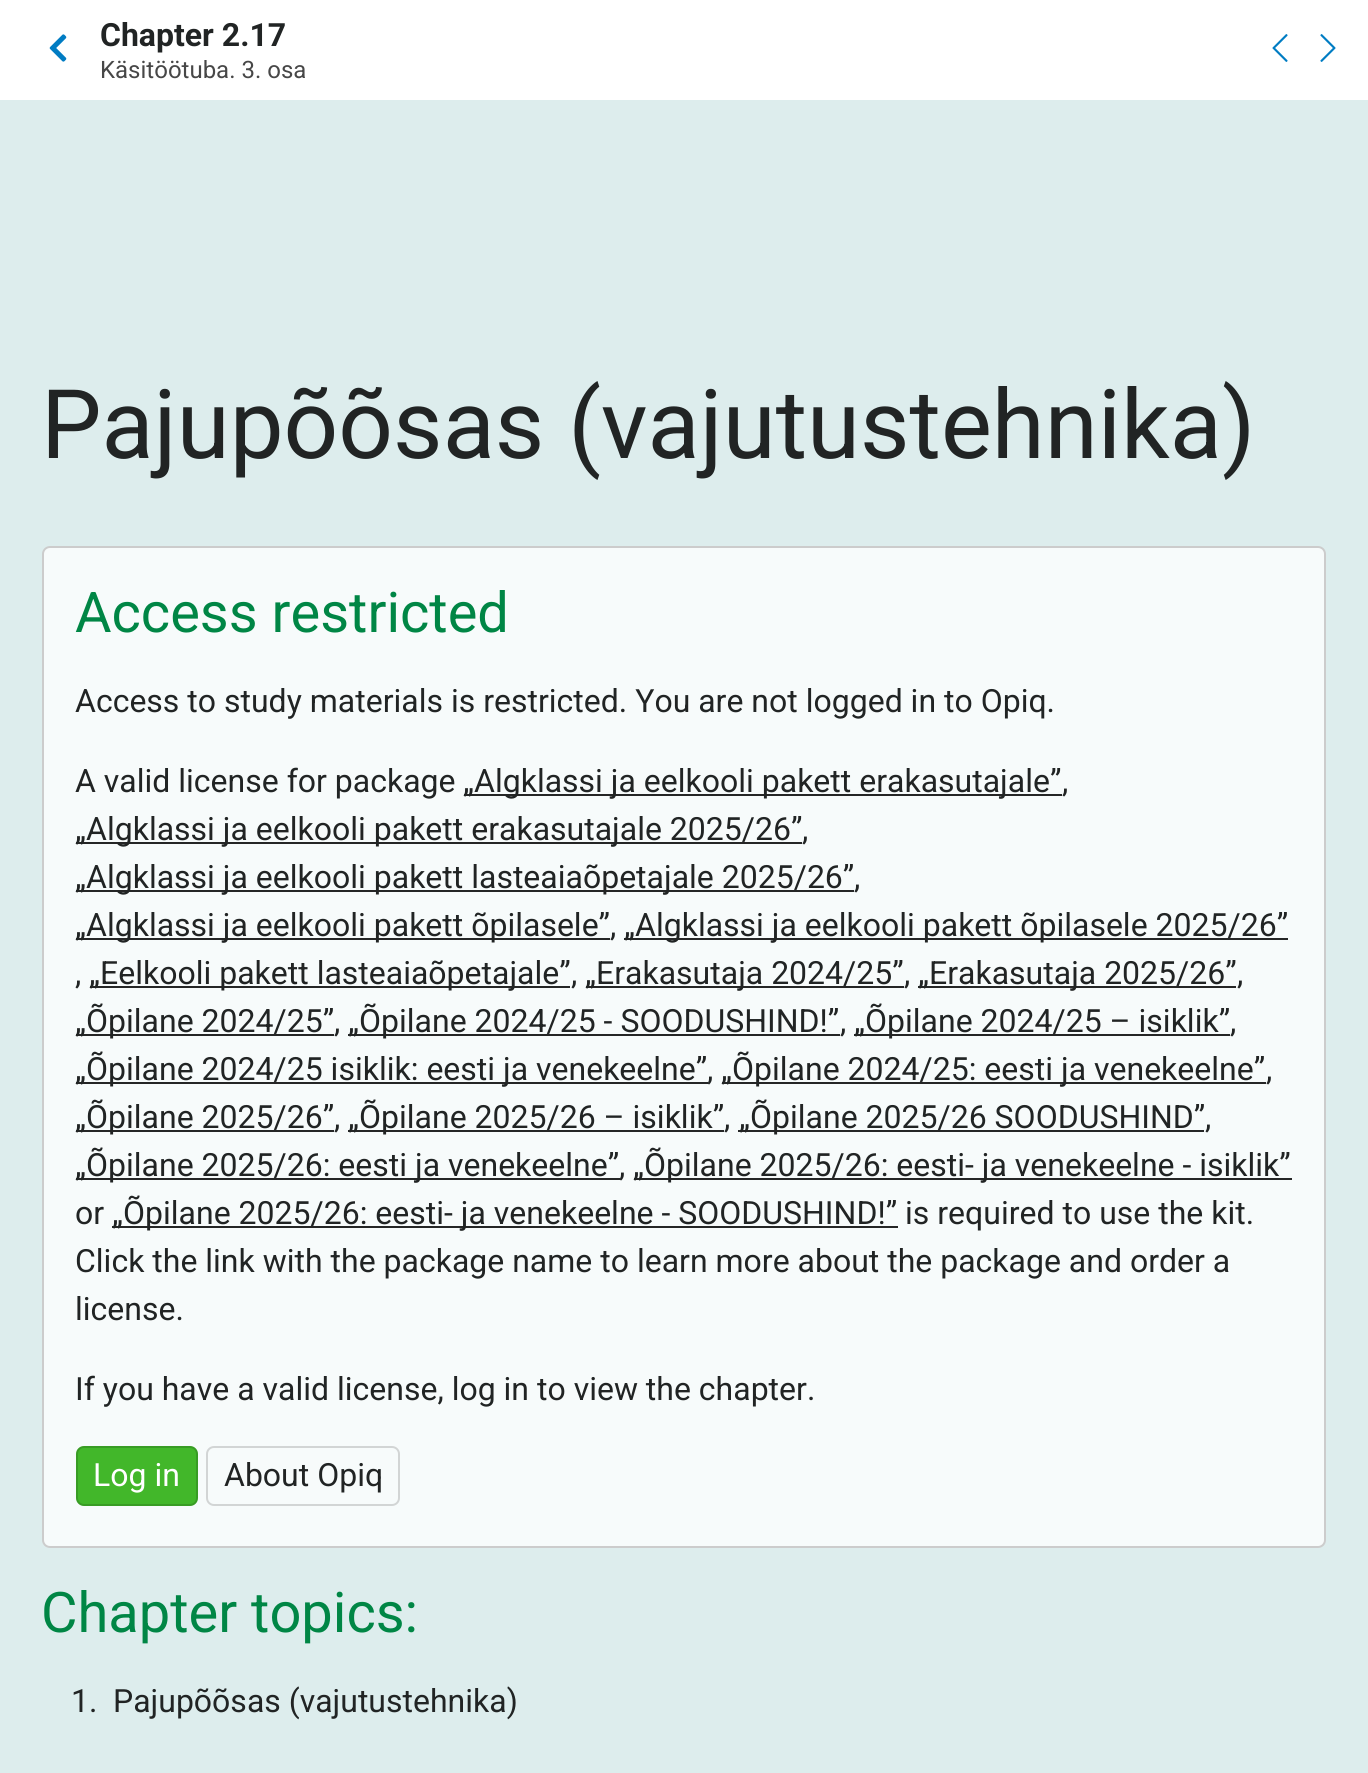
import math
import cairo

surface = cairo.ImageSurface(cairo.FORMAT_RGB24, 1368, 1773)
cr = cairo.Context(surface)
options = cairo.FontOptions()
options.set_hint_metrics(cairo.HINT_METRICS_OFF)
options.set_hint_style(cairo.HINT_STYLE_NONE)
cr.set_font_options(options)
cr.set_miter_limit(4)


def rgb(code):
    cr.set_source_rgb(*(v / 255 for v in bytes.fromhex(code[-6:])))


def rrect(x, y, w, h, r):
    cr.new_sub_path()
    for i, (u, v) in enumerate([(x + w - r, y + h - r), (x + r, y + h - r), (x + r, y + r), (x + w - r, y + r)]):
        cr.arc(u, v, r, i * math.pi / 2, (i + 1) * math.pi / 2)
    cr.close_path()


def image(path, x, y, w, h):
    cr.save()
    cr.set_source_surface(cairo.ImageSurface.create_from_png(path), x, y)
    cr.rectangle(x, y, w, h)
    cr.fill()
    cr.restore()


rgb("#ddeded")
cr.paint()
rgb("#ffffff")
cr.rectangle(0, 0, 1368, 100)
cr.fill()
image("img/1.png", 49, 34, 18, 28)
image("img/2.png", 1272, 34, 16, 28)
image("img/3.png", 1320, 34, 16, 28)
rgb("#f7fbfb")
rrect(43, 547, 1282, 1000, 7)
cr.fill_preserve()
rgb("#cccccc")
cr.stroke()
for x, y, w, h, color in [
    (464, 794, 598, 2, "#252626"),
    (76, 842, 726, 2, "#252626"),
    (76, 890, 778, 2, "#252626"),
    (76, 938, 534, 2, "#252626"),
    (624, 938, 664, 2, "#252626"),
    (90, 986, 480, 2, "#252626"),
    (586, 986, 318, 2, "#252626"),
    (918, 986, 318, 2, "#252626"),
    (76, 1034, 258, 2, "#252626"),
    (348, 1034, 492, 2, "#252626"),
    (854, 1034, 376, 2, "#252626"),
    (76, 1082, 632, 2, "#252626"),
    (722, 1082, 544, 2, "#252626"),
    (76, 1130, 258, 2, "#252626"),
    (348, 1130, 376, 2, "#252626"),
    (738, 1130, 466, 2, "#252626"),
    (76, 1178, 544, 2, "#252626"),
    (634, 1178, 658, 2, "#252626"),
    (112, 1226, 786, 2, "#252626"),
]:
    rgb(color)
    cr.rectangle(x, y, w, h)
    cr.fill()
rgb("#42b72a")
rrect(76, 1446, 122, 60, 8)
cr.fill()
rrect(77, 1447, 120, 58, 7)
cr.set_source_rgba(0, 0, 0, 0.15)
cr.stroke()
rrect(207, 1447, 192, 58, 7)
rgb("#d2d5d5")
cr.stroke()
cr.select_font_face("Roboto", cairo.FONT_SLANT_NORMAL, cairo.FONT_WEIGHT_BOLD)
cr.set_font_size(32)
rgb("#212424")
cr.move_to(100, 46)
cr.show_text("Chapter 2.17")
cr.select_font_face("Roboto")
cr.set_font_size(24)
rgb("#474747")
cr.move_to(100, 78)
cr.show_text("Käsitöötuba. 3. osa")
cr.set_font_size(96)
rgb("#212424")
cr.move_to(41, 458)
cr.show_text("Pajupõõsas (vajutustehnika)")
cr.set_font_size(56)
rgb("#008645")
cr.move_to(75, 632)
cr.show_text("Access restricted")
cr.set_font_size(32)
rgb("#212424")
for x, y, s in [
    (75, 712, "Access to study materials is restricted. You are not logged in to Opiq."),
    (75, 792, "A valid license for package"),
    (463, 792, "„Algklassi ja eelkooli pakett erakasutajale”"),
    (1062, 792, ","),
    (75, 840, "„Algklassi ja eelkooli pakett erakasutajale 2025/26”"),
    (802, 840, ","),
    (75, 888, "„Algklassi ja eelkooli pakett lasteaiaõpetajale 2025/26”"),
    (854, 888, ","),
    (75, 936, "„Algklassi ja eelkooli pakett õpilasele”"),
    (610, 936, ","),
    (624, 936, "„Algklassi ja eelkooli pakett õpilasele 2025/26”"),
    (75, 984, ","),
    (89, 984, "„Eelkooli pakett lasteaiaõpetajale”"),
    (571, 984, ","),
    (585, 984, "„Erakasutaja 2024/25”"),
    (904, 984, ","),
    (918, 984, "„Erakasutaja 2025/26”"),
    (1237, 984, ","),
    (75, 1032, "„Õpilane 2024/25”"),
    (334, 1032, ","),
    (348, 1032, "„Õpilane 2024/25 - SOODUSHIND!”"),
    (840, 1032, ","),
    (854, 1032, "„Õpilane 2024/25 – isiklik”"),
    (1230, 1032, ","),
    (75, 1080, "„Õpilane 2024/25 isiklik: eesti ja venekeelne”"),
    (707, 1080, ","),
    (721, 1080, "„Õpilane 2024/25: eesti ja venekeelne”"),
    (1266, 1080, ","),
    (75, 1128, "„Õpilane 2025/26”"),
    (334, 1128, ","),
    (348, 1128, "„Õpilane 2025/26 – isiklik”"),
    (724, 1128, ","),
    (739, 1128, "„Õpilane 2025/26 SOODUSHIND”"),
    (1205, 1128, ","),
    (75, 1176, "„Õpilane 2025/26: eesti ja venekeelne”"),
    (619, 1176, ","),
    (633, 1176, "„Õpilane 2025/26: eesti- ja venekeelne - isiklik”"),
    (75, 1224, "or"),
    (112, 1224, "„Õpilane 2025/26: eesti- ja venekeelne - SOODUSHIND!” is required to use the kit."),
    (75, 1272, "Click the link with the package name to learn more about the package and order a"),
    (75, 1320, "license."),
    (75, 1400, "If you have a valid license, log in to view the chapter."),
]:
    cr.move_to(x, y)
    cr.show_text(s)
rgb("#ffffff")
cr.move_to(93, 1486)
cr.show_text("Log in")
rgb("#212424")
cr.move_to(224, 1486)
cr.show_text("About Opiq")
cr.set_font_size(56)
rgb("#008645")
cr.move_to(41, 1632)
cr.show_text("Chapter topics:")
cr.set_font_size(32)
rgb("#212424")
cr.move_to(71, 1712)
cr.show_text("1.")
cr.move_to(113, 1712)
cr.show_text("Pajupõõsas (vajutustehnika)")
surface.write_to_png("page.png")
